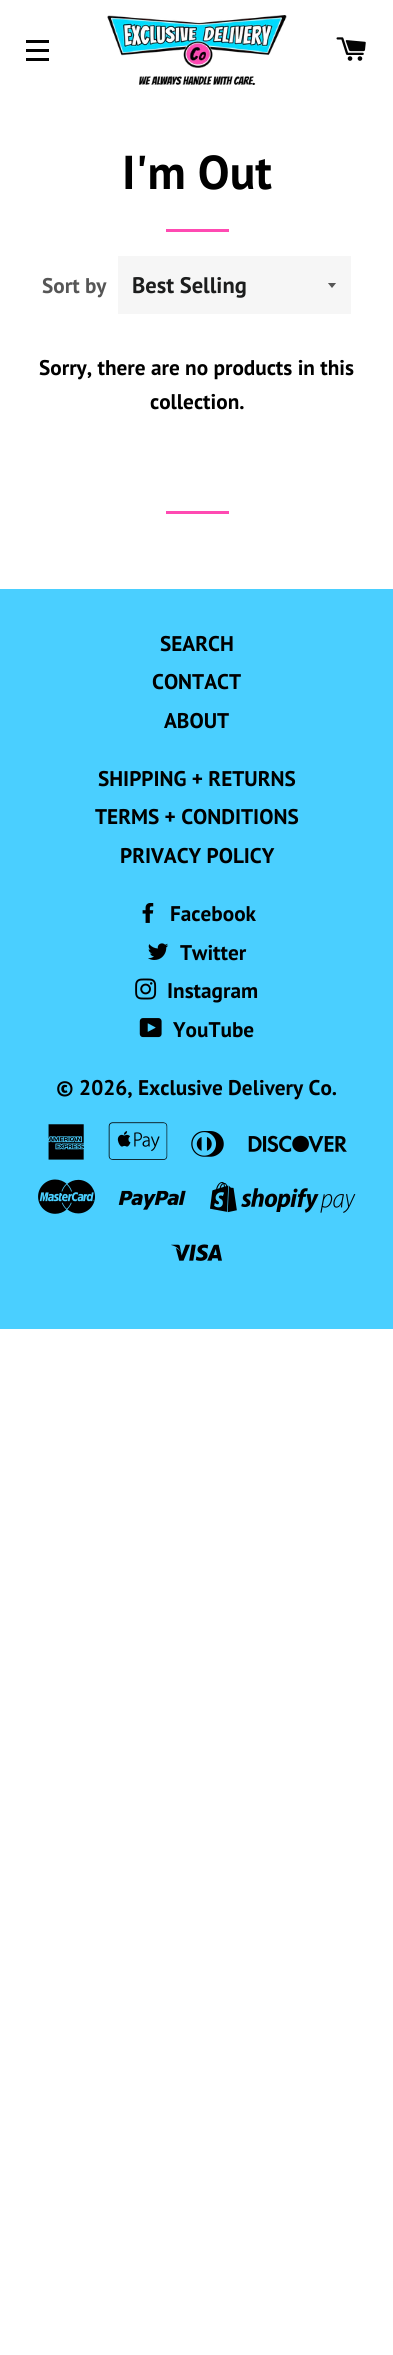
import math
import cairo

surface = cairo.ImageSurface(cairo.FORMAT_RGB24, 393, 2355)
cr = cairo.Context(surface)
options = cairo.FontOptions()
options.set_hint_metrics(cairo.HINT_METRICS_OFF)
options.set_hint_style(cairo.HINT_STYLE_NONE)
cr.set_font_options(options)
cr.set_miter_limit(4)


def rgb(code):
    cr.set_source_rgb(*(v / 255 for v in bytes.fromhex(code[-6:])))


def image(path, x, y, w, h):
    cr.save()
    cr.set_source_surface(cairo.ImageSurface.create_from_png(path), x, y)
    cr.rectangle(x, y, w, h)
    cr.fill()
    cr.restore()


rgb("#ffffff")
cr.paint()
for x, y, w, h, color in [
    (26, 40, 23, 3, "#030303"),
    (26, 49, 23, 3, "#030303"),
    (26, 58, 23, 3, "#030303"),
]:
    rgb(color)
    cr.rectangle(x, y, w, h)
    cr.fill()
image("img/1.png", 107, 15, 180, 70)
image("img/2.png", 336, 37, 30, 24)
rgb("#ff4ab2")
cr.rectangle(166, 229, 63, 3)
cr.fill()
rgb("#f6f6f6")
cr.rectangle(118, 256, 233, 58)
cr.fill()
cr.save()
cr.rectangle(328, 283, 10, 6)
cr.clip()
rgb("#565656")
cr.new_path()
cr.move_to(327.5, 282.5)
cr.line_to(332, 288)
cr.line_to(336.5, 282.5)
cr.close_path()
cr.fill()
cr.restore()
rgb("#ff4ab2")
cr.rectangle(166, 511, 63, 3)
cr.fill()
rgb("#4acfff")
cr.rectangle(0, 589, 393, 740)
cr.fill()
image("img/3.png", 142, 903, 12, 20)
image("img/4.png", 148, 943, 21, 17)
image("img/5.png", 135, 978, 22, 22)
image("img/6.png", 139, 1018, 23, 20)
image("img/7.png", 48, 1124, 36, 36)
image("img/8.png", 108, 1122, 60, 38)
image("img/9.png", 191, 1131, 33, 26)
image("img/10.png", 248, 1135, 99, 18)
image("img/11.png", 38, 1179, 57, 35)
image("img/12.png", 118, 1190, 68, 20)
image("img/13.png", 210, 1182, 146, 31)
image("img/14.png", 171, 1244, 51, 17)
cr.select_font_face("PT Sans", cairo.FONT_SLANT_NORMAL, cairo.FONT_WEIGHT_BOLD)
cr.set_font_size(47.5)
rgb("#000000")
cr.move_to(122, 189)
cr.show_text("I'm Out")
cr.set_font_size(21.25)
rgb("#565656")
cr.move_to(42, 293)
cr.show_text("Sort by")
cr.set_font_size(22.5)
rgb("#1c1d1d")
cr.move_to(132, 293)
cr.show_text("Best Selling")
cr.set_font_size(21.25)
rgb("#000000")
for x, y, s in [
    (39, 375, "Sorry, there are no products in this"),
    (150, 409, "collection."),
    (160, 651, "SEARCH"),
    (152, 689, "CONTACT"),
    (164, 728, "ABOUT"),
    (98, 786, "SHIPPING + RETURNS"),
    (95, 824, "TERMS + CONDITIONS"),
    (120, 863, "PRIVACY POLICY"),
    (170, 921, "Facebook"),
    (180, 960, "Twitter"),
    (167, 998, "Instagram"),
    (173, 1037, "YouTube"),
    (56, 1095, "© 2026, Exclusive Delivery Co."),
]:
    cr.move_to(x, y)
    cr.show_text(s)
surface.write_to_png("page.png")
